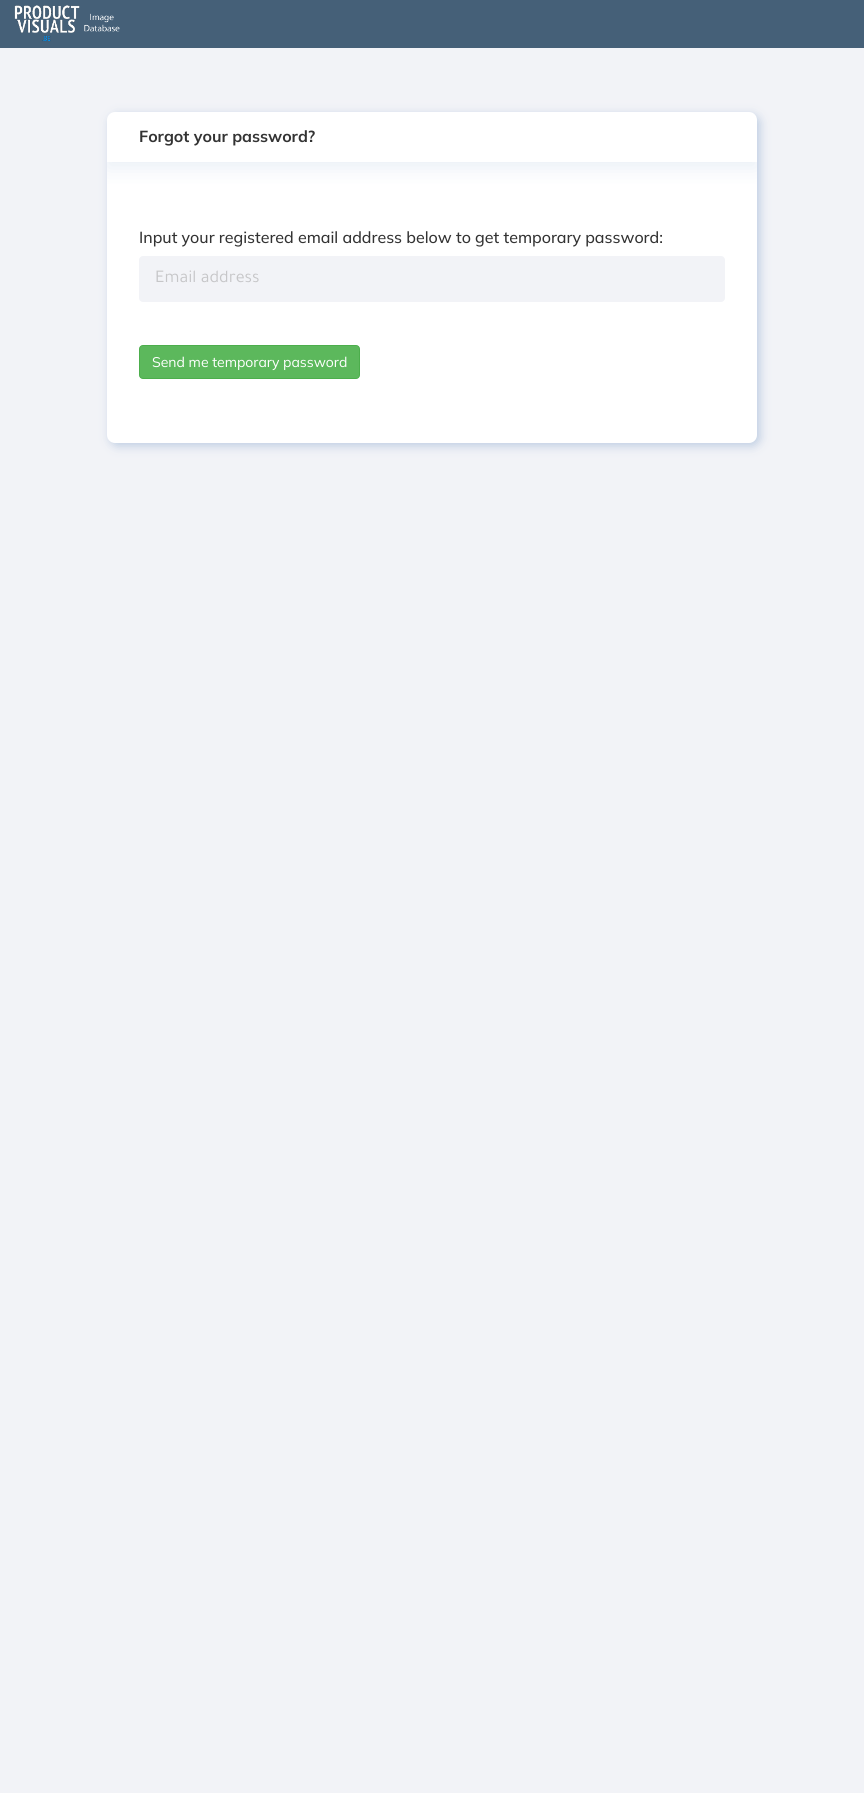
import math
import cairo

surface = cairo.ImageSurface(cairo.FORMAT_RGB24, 864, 1793)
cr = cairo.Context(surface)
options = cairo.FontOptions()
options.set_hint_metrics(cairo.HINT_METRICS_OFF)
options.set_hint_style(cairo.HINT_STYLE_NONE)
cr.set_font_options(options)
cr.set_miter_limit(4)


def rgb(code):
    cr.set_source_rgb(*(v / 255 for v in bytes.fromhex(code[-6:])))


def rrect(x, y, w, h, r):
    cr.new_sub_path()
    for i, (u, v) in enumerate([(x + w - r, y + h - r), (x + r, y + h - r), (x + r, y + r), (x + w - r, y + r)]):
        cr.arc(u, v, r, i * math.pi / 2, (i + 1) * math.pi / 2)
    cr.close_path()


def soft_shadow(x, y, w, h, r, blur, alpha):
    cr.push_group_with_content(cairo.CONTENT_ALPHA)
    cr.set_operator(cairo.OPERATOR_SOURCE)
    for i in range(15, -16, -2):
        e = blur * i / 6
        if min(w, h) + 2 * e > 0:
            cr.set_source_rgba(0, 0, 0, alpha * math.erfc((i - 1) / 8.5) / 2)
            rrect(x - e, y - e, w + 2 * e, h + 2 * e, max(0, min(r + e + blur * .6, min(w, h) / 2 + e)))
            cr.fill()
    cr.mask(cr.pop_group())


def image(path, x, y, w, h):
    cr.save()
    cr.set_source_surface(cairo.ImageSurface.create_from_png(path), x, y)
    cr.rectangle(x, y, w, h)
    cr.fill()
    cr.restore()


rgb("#f2f3f7")
cr.paint()
rgb("#456078")
cr.rectangle(0, 0, 864, 48)
cr.fill()
image("img/1.png", 14, 5, 106, 37)
rgb("#becde2")
soft_shadow(110, 115, 650, 331, 8, 5, 1)
rgb("#ffffff")
rrect(107, 112, 650, 331, 8)
cr.fill()
cr.save()
rrect(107, 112, 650, 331, 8)
cr.clip()
cr.rectangle(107, 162, 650, 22)
cr.clip()
rgb("#c3d2e7")
soft_shadow(107, 118, 650, 50, 0, 10, 0.37)
cr.restore()
rgb("#f2f3f7")
rrect(139, 256, 586, 46, 4)
cr.fill()
rgb("#5cb85c")
rrect(139.5, 345.5, 220, 33, 3.5)
cr.fill_preserve()
rgb("#4cae4c")
cr.set_line_width(1)
cr.stroke()
cr.select_font_face("Mulish", cairo.FONT_SLANT_NORMAL, cairo.FONT_WEIGHT_BOLD)
cr.set_font_size(16)
rgb("#333333")
cr.move_to(139, 142)
cr.show_text("Forgot your password?")
cr.select_font_face("Mulish Medium")
cr.move_to(139, 243)
cr.show_text("Input your registered email address below to get temporary password:")
cr.select_font_face("Tajawal")
cr.set_font_size(18)
rgb("#c6c6c8")
cr.move_to(155, 282)
cr.show_text("Email address")
cr.select_font_face("Mulish")
cr.set_font_size(14)
rgb("#ffffff")
cr.move_to(152, 367)
cr.show_text("Send me temporary password")
surface.write_to_png("page.png")
